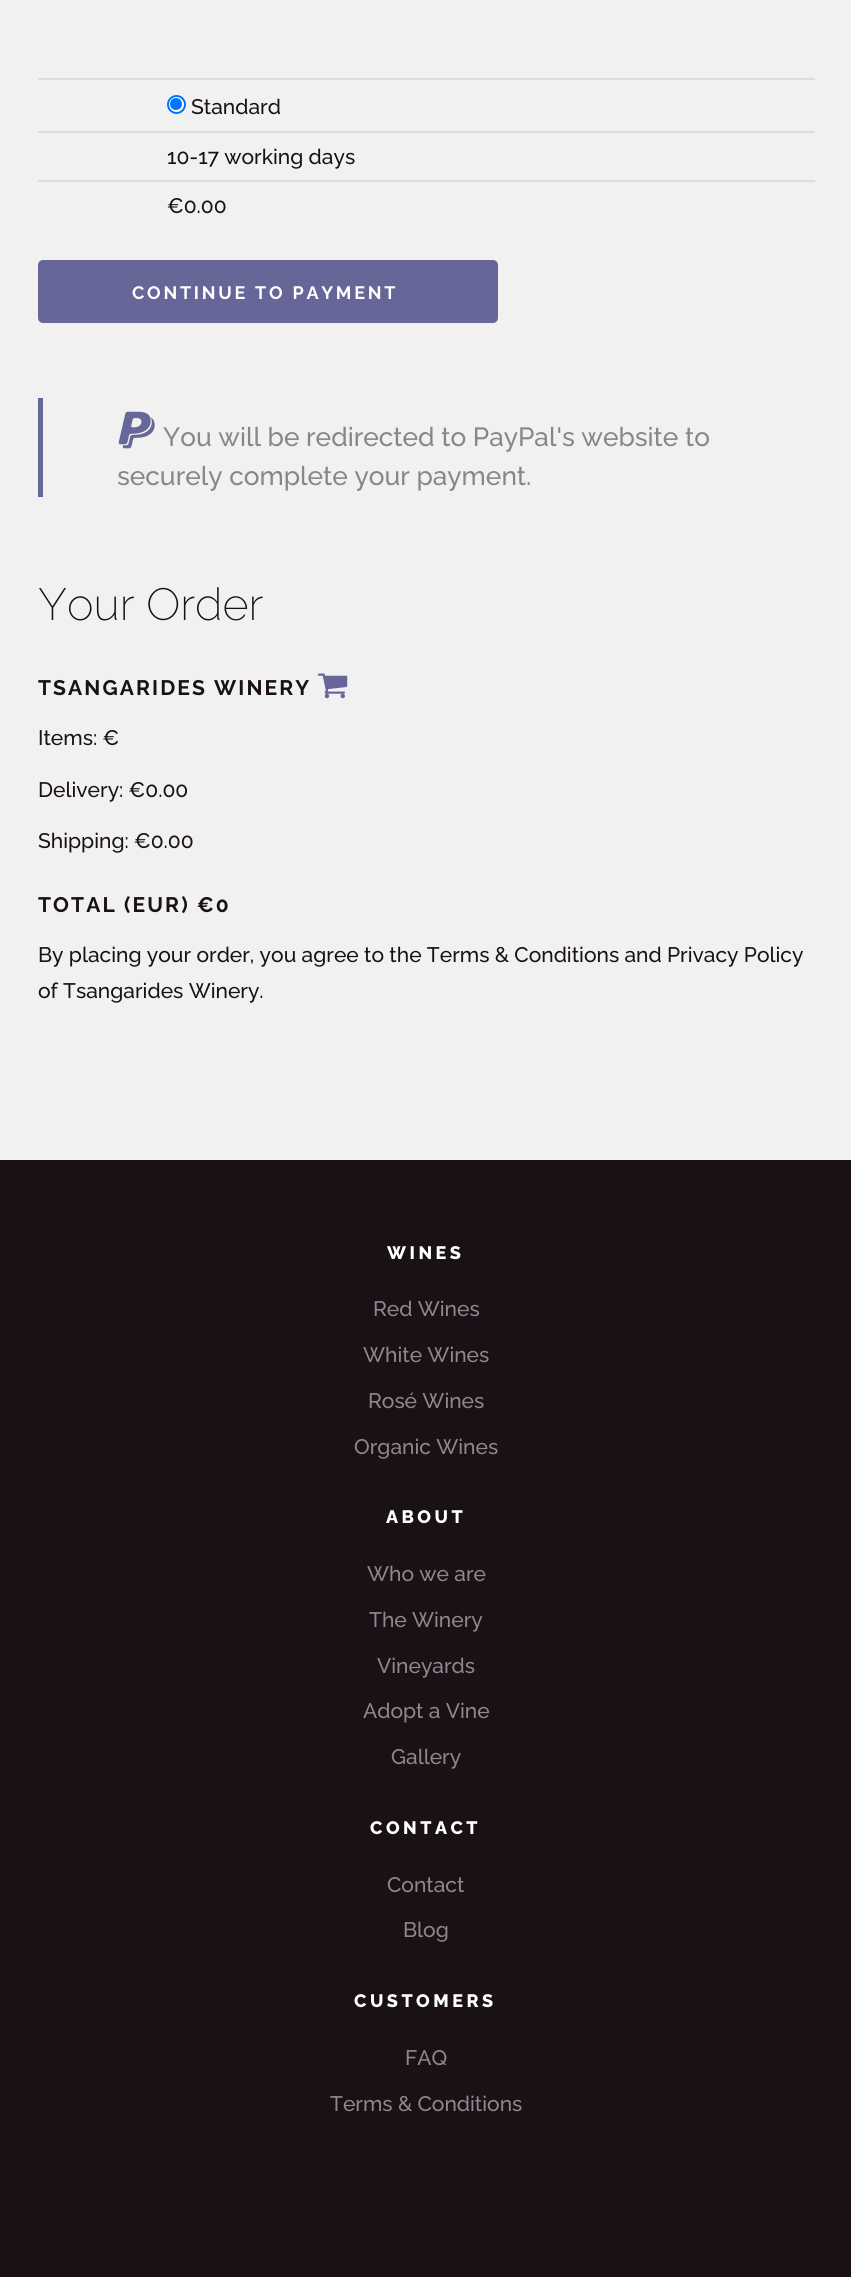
import math
import cairo

surface = cairo.ImageSurface(cairo.FORMAT_RGB24, 851, 2277)
cr = cairo.Context(surface)
options = cairo.FontOptions()
options.set_hint_metrics(cairo.HINT_METRICS_OFF)
options.set_hint_style(cairo.HINT_STYLE_NONE)
cr.set_font_options(options)
cr.set_miter_limit(4)


def rgb(code):
    cr.set_source_rgb(*(v / 255 for v in bytes.fromhex(code[-6:])))


def tracked(x, y, s, letter, word):
    cr.move_to(x, y)
    for ch in s:
        cr.show_text(ch)
        cr.rel_move_to(letter + word * (ch == ' '), 0)


def rrect(x, y, w, h, r):
    cr.new_sub_path()
    for i, (u, v) in enumerate([(x + w - r, y + h - r), (x + r, y + h - r), (x + r, y + r), (x + w - r, y + r)]):
        cr.arc(u, v, r, i * math.pi / 2, (i + 1) * math.pi / 2)
    cr.close_path()


def image(path, x, y, w, h):
    cr.save()
    cr.set_source_surface(cairo.ImageSurface.create_from_png(path), x, y)
    cr.rectangle(x, y, w, h)
    cr.fill()
    cr.restore()


rgb("#f1f1f1")
cr.paint()
rgb("#dddddd")
cr.rectangle(38, 78, 777, 2)
cr.fill()
rgb("#ffffff")
cr.arc(176.5, 104.5, 8.5, 0, 2 * math.pi)
cr.fill_preserve()
rgb("#0075ff")
cr.stroke()
cr.arc(176, 104, 6, 0, 2 * math.pi)
cr.fill()
rgb("#dddddd")
cr.rectangle(38, 131, 777, 2)
cr.fill()
cr.rectangle(38, 180, 777, 2)
cr.fill()
rgb("#666699")
rrect(38, 260, 460, 63, 5)
cr.fill()
cr.rectangle(38, 398, 5, 99)
cr.fill()
image("img/1.png", 118, 411, 37, 38)
image("img/2.png", 318, 673, 30, 26)
rgb("#1a1117")
cr.rectangle(0, 1160, 851, 1117)
cr.fill()
cr.select_font_face("Raleway Medium")
cr.set_font_size(21)
for x, y, s in [
    (191, 114, "Standard"),
    (167, 164, "10-17 working days"),
    (167, 213, "€0.00"),
]:
    cr.move_to(x, y)
    cr.show_text(s)
cr.select_font_face("Raleway", cairo.FONT_SLANT_NORMAL, cairo.FONT_WEIGHT_BOLD)
cr.set_font_size(18)
rgb("#ffffff")
tracked(132, 299, "CONTINUE TO PAYMENT", 2.75, 0)
cr.select_font_face("Raleway Medium")
cr.set_font_size(26.25)
rgb("#878787")
cr.move_to(163, 446)
cr.show_text("You will be redirected to PayPal's website to")
cr.move_to(117, 485)
cr.show_text("securely complete your payment.")
cr.select_font_face("Raleway ExtraLight")
cr.set_font_size(45)
rgb("#1a1117")
cr.move_to(38, 620)
cr.show_text("Your Order")
cr.select_font_face("Raleway", cairo.FONT_SLANT_NORMAL, cairo.FONT_WEIGHT_BOLD)
cr.set_font_size(21)
tracked(38, 695, "TSANGARIDES WINERY", 2.1, 0)
cr.select_font_face("Raleway Medium")
for x, y, s in [
    (38, 745, "Items: €"),
    (38, 797, "Delivery: €0.00"),
    (38, 848, "Shipping: €0.00"),
]:
    cr.move_to(x, y)
    cr.show_text(s)
cr.select_font_face("Raleway", cairo.FONT_SLANT_NORMAL, cairo.FONT_WEIGHT_BOLD)
tracked(38, 912, "TOTAL (EUR) €0", 2.1, 0)
cr.select_font_face("Raleway Medium")
cr.move_to(38, 962)
cr.show_text("By placing your order, you agree to the Terms & Conditions and Privacy Policy")
cr.move_to(38, 998)
cr.show_text("of Tsangarides Winery.")
cr.select_font_face("Raleway ExtraBold")
cr.set_font_size(18)
rgb("#ffffff")
tracked(387, 1259, "WINES", 3.5, 0)
cr.select_font_face("Raleway Medium")
cr.set_font_size(21)
rgb("#8d888b")
for x, y, s in [
    (373, 1316, "Red Wines"),
    (363, 1362, "White Wines"),
    (368, 1408, "Rosé Wines"),
    (354, 1454, "Organic Wines"),
]:
    cr.move_to(x, y)
    cr.show_text(s)
cr.select_font_face("Raleway ExtraBold")
cr.set_font_size(18)
rgb("#ffffff")
tracked(386, 1523, "ABOUT", 3.5, 0)
cr.select_font_face("Raleway Medium")
cr.set_font_size(21)
rgb("#8d888b")
for x, y, s in [
    (367, 1581, "Who we are"),
    (369, 1627, "The Winery"),
    (377, 1673, "Vineyards"),
    (363, 1718, "Adopt a Vine"),
    (391, 1764, "Gallery"),
]:
    cr.move_to(x, y)
    cr.show_text(s)
cr.select_font_face("Raleway ExtraBold")
cr.set_font_size(18)
rgb("#ffffff")
tracked(370, 1834, "CONTACT", 3.5, 0)
cr.select_font_face("Raleway Medium")
cr.set_font_size(21)
rgb("#8d888b")
cr.move_to(387, 1892)
cr.show_text("Contact")
cr.move_to(403, 1937)
cr.show_text("Blog")
cr.select_font_face("Raleway ExtraBold")
cr.set_font_size(18)
rgb("#ffffff")
tracked(354, 2007, "CUSTOMERS", 3.5, 0)
cr.select_font_face("Raleway Medium")
cr.set_font_size(21)
rgb("#8d888b")
cr.move_to(405, 2065)
cr.show_text("FAQ")
cr.move_to(330, 2111)
cr.show_text("Terms & Conditions")
surface.write_to_png("page.png")
